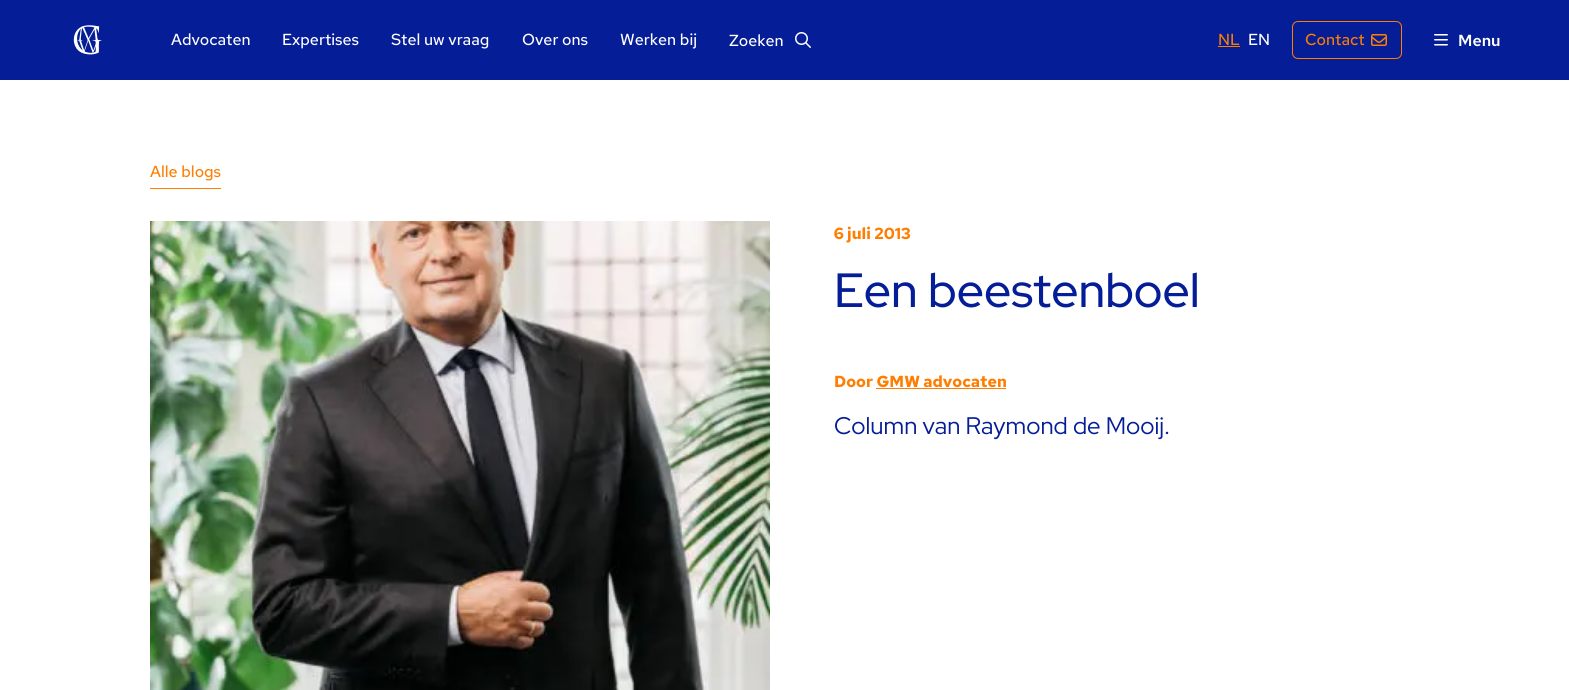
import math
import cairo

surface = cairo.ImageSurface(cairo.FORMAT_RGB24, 1569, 690)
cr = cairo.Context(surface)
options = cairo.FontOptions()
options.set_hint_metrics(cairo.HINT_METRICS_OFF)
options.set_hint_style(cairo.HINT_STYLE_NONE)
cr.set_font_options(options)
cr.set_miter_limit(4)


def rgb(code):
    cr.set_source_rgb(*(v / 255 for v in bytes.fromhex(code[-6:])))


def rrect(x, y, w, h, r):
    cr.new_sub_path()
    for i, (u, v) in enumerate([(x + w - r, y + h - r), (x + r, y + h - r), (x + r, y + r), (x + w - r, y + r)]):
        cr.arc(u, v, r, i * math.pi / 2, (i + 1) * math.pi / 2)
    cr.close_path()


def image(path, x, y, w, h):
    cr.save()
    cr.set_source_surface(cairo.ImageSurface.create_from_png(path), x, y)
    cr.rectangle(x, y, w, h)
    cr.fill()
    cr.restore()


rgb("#ffffff")
cr.paint()
rgb("#051d96")
cr.rectangle(0, 0, 1569, 80)
cr.fill()
image("img/1.png", 73, 25, 29, 30)
image("img/2.png", 795, 32, 16, 16)
rgb("#ff7d00")
cr.rectangle(1218, 46, 22, 1)
cr.fill()
rrect(1292.5, 21.5, 109, 37, 5.5)
cr.set_line_width(1)
cr.stroke()
image("img/3.png", 1371, 34, 16, 12)
image("img/4.png", 1434, 34, 14, 12)
cr.rectangle(150, 188, 71, 1)
cr.fill()
image("img/5.png", 150, 221, 620, 469)
cr.rectangle(876, 388, 130, 1)
cr.fill()
cr.select_font_face("Red Hat Text Medium")
cr.set_font_size(16)
rgb("#ffffff")
for x, y, s in [
    (171, 45, "Advocaten"),
    (282, 45, "Expertises"),
    (391, 45, "Stel uw vraag"),
    (522, 45, "Over ons"),
    (620, 45, "Werken bij"),
    (729, 46, "Zoeken"),
]:
    cr.move_to(x, y)
    cr.show_text(s)
rgb("#ff7d00")
cr.move_to(1218, 45)
cr.show_text("NL")
rgb("#ffffff")
cr.move_to(1248, 45)
cr.show_text("EN")
rgb("#ff7d00")
cr.move_to(1305, 45)
cr.show_text("Contact")
cr.select_font_face("Red Hat Text SemiBold")
rgb("#ffffff")
cr.move_to(1458, 46)
cr.show_text("Menu")
cr.select_font_face("Red Hat Text Medium")
rgb("#ff7d00")
cr.move_to(150, 177)
cr.show_text("Alle blogs")
cr.select_font_face("Red Hat Text", cairo.FONT_SLANT_NORMAL, cairo.FONT_WEIGHT_BOLD)
cr.move_to(834, 239)
cr.show_text("6 juli 2013")
cr.select_font_face("Red Hat Display Medium")
cr.set_font_size(48)
rgb("#051d96")
cr.move_to(834, 307)
cr.show_text("Een beestenboel")
cr.select_font_face("Red Hat Text", cairo.FONT_SLANT_NORMAL, cairo.FONT_WEIGHT_BOLD)
cr.set_font_size(16)
rgb("#ff7d00")
cr.move_to(834, 387)
cr.show_text("Door GMW advocaten")
cr.select_font_face("Red Hat Display")
cr.set_font_size(24)
rgb("#051d96")
cr.move_to(834, 434)
cr.show_text("Column van Raymond de Mooij.")
surface.write_to_png("page.png")
